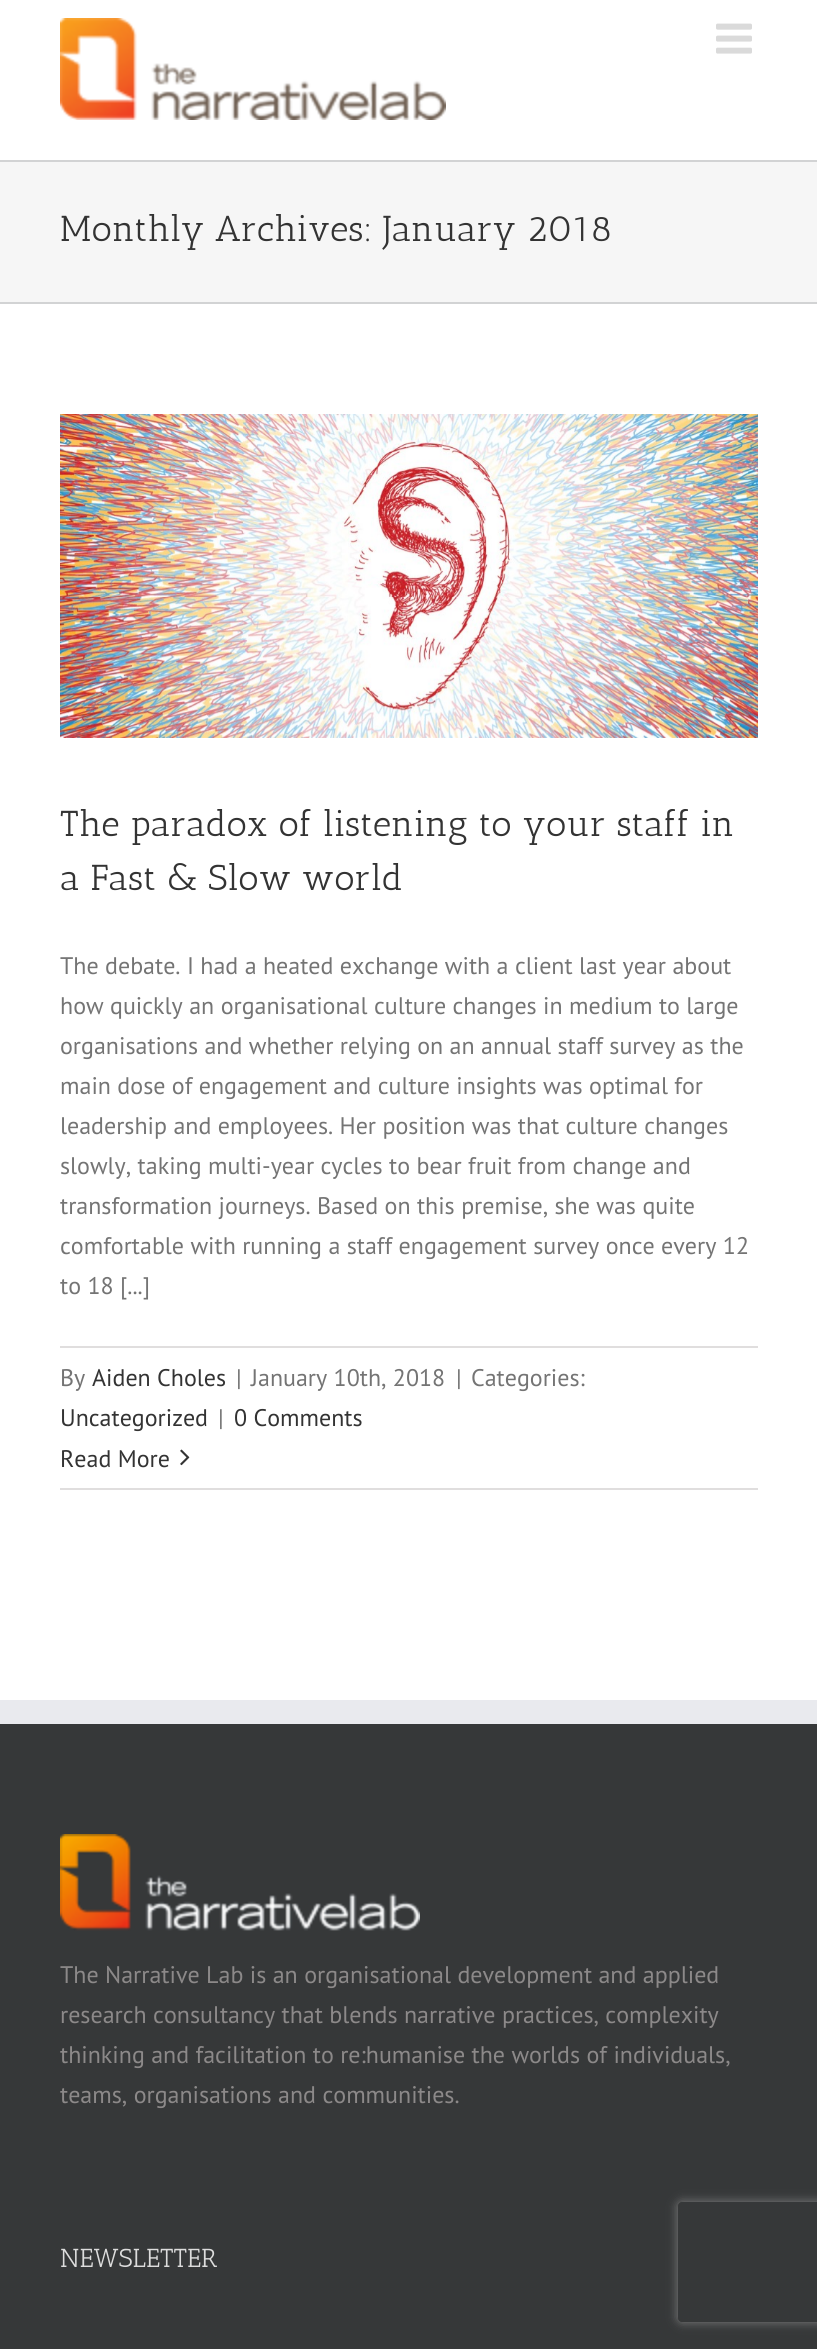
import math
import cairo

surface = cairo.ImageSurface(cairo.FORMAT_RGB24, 817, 2349)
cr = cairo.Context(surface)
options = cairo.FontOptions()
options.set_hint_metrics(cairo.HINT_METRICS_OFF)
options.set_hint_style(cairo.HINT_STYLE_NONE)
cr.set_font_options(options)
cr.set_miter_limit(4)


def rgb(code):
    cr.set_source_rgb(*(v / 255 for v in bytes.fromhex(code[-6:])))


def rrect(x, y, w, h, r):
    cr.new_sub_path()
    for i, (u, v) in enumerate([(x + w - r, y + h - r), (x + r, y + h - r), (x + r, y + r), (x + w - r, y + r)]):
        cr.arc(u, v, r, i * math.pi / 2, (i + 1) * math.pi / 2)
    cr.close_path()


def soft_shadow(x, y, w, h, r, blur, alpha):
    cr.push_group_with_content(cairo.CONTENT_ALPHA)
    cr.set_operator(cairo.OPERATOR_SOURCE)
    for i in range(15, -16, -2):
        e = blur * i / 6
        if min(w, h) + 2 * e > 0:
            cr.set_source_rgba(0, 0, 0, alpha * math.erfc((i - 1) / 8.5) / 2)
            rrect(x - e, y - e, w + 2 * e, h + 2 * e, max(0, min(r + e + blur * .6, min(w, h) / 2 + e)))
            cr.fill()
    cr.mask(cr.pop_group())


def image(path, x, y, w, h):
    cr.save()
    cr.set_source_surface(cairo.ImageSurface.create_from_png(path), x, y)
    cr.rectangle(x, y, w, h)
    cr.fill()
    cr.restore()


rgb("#ffffff")
cr.paint()
image("img/1.png", 60, 18, 386, 102)
image("img/2.png", 716, 23, 36, 31)
for x, y, w, h, color in [
    (0, 162, 817, 140, "#f6f6f6"),
    (0, 160, 817, 2, "#d2d3d4"),
    (0, 302, 817, 2, "#d2d3d4"),
]:
    rgb(color)
    cr.rectangle(x, y, w, h)
    cr.fill()
image("img/3.png", 60, 414, 698, 324)
rgb("#e0dede")
cr.rectangle(60, 1346, 698, 2)
cr.fill()
cr.rectangle(60, 1488, 698, 2)
cr.fill()
image("img/4.png", 180, 1449, 10, 17)
rgb("#363839")
cr.rectangle(0, 1724, 817, 625)
cr.fill()
rgb("#e9eaee")
cr.rectangle(0, 1700, 817, 24)
cr.fill()
image("img/5.png", 60, 1834, 360, 97)
cr.save()
cr.set_fill_rule(cairo.FILL_RULE_EVEN_ODD)
cr.new_path()
cr.move_to(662, 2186)
cr.line_to(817, 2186)
cr.line_to(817, 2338)
cr.line_to(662, 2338)
cr.close_path()
cr.move_to(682, 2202)
cr.line_to(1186, 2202)
cr.curve_to(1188, 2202, 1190, 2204, 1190, 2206)
cr.line_to(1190, 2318)
cr.curve_to(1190, 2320, 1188, 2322, 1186, 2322)
cr.line_to(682, 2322)
cr.curve_to(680, 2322, 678, 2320, 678, 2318)
cr.line_to(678, 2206)
cr.curve_to(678, 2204, 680, 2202, 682, 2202)
cr.close_path()
cr.clip()
rgb("#808080")
soft_shadow(678, 2202, 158, 120, 4, 5, 1)
cr.restore()
cr.select_font_face("Antic Slab")
cr.set_font_size(36)
rgb("#333333")
for x, y, s in [
    (60, 241, "Monthly Archives: January 2018"),
    (60, 836, "The paradox of listening to your staff in"),
    (60, 890, "a Fast & Slow world"),
]:
    cr.move_to(x, y)
    cr.show_text(s)
cr.select_font_face("PT Sans")
cr.set_font_size(24)
rgb("#747474")
for x, y, s in [
    (60, 974, "The debate. I had a heated exchange with a client last year about"),
    (60, 1014, "how quickly an organisational culture changes in medium to large"),
    (60, 1054, "organisations and whether relying on an annual staff survey as the"),
    (60, 1094, "main dose of engagement and culture insights was optimal for"),
    (60, 1134, "leadership and employees. Her position was that culture changes"),
    (60, 1174, "slowly, taking multi-year cycles to bear fruit from change and"),
    (60, 1214, "transformation journeys. Based on this premise, she was quite"),
    (60, 1254, "comfortable with running a staff engagement survey once every 12"),
    (60, 1294, "to 18 [...]"),
    (60, 1386, "By"),
]:
    cr.move_to(x, y)
    cr.show_text(s)
rgb("#333333")
cr.move_to(92, 1386)
cr.show_text("Aiden Choles")
rgb("#747474")
for x, y, s in [
    (236, 1386, "|"),
    (251, 1386, "January 10th, 2018"),
    (456, 1386, "|"),
    (471, 1386, "Categories:"),
]:
    cr.move_to(x, y)
    cr.show_text(s)
rgb("#333333")
cr.move_to(60, 1426)
cr.show_text("Uncategorized")
rgb("#747474")
cr.move_to(218, 1426)
cr.show_text("|")
rgb("#333333")
cr.move_to(234, 1426)
cr.show_text("0 Comments")
cr.move_to(60, 1467)
cr.show_text("Read More")
rgb("#8c8989")
for x, y, s in [
    (60, 1983, "The Narrative Lab is an organisational development and applied"),
    (60, 2023, "research consultancy that blends narrative practices, complexity"),
    (60, 2063, "thinking and facilitation to re:humanise the worlds of individuals,"),
    (60, 2103, "teams, organisations and communities."),
]:
    cr.move_to(x, y)
    cr.show_text(s)
cr.select_font_face("Antic Slab")
cr.set_font_size(26)
rgb("#dddddd")
cr.move_to(60, 2267)
cr.show_text("NEWSLETTER")
surface.write_to_png("page.png")
